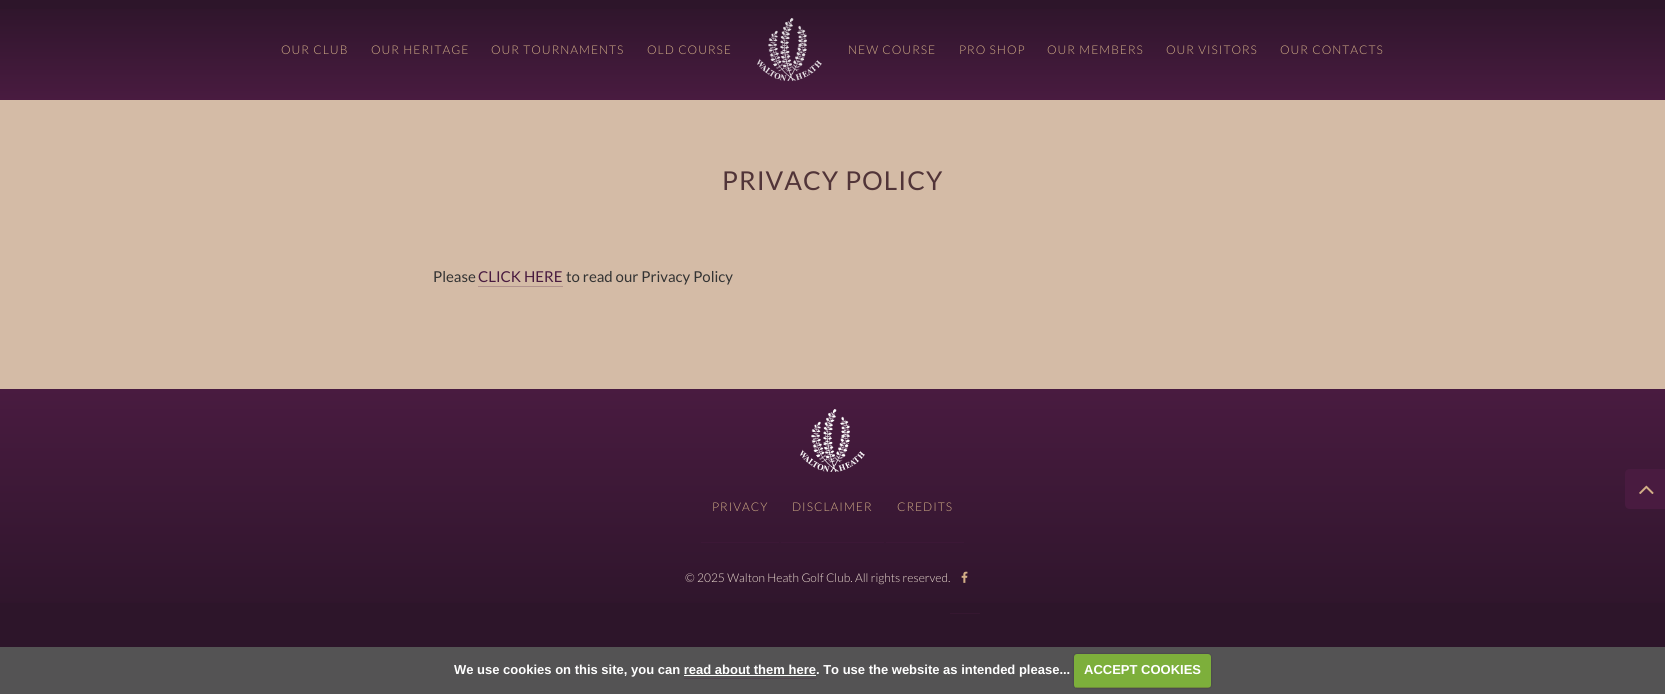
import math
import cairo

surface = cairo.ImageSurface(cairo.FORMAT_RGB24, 1665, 694)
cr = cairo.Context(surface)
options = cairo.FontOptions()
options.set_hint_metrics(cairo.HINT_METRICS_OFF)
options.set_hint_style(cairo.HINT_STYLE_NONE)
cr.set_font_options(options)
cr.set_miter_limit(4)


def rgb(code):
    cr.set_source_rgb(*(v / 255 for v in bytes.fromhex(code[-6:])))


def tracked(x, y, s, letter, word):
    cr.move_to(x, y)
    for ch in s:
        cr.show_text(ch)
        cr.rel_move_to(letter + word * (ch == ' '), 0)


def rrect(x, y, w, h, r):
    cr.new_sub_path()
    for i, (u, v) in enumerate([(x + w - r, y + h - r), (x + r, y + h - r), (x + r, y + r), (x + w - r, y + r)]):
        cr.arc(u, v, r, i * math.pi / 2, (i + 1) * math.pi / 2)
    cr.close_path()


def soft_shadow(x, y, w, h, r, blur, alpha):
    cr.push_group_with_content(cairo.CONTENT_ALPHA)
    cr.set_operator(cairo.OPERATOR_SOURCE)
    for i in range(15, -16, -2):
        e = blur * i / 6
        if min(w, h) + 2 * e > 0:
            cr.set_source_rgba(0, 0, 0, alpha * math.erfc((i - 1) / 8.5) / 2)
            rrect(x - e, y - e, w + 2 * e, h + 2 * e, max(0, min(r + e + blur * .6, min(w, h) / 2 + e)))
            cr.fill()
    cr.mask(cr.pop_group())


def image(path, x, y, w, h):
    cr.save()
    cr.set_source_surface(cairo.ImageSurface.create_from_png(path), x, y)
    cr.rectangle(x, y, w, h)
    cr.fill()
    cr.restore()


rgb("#2d152a")
cr.paint()
gradient = cairo.LinearGradient(833, 0, 833, 100)
gradient.add_color_stop_rgba(0, 0.176, 0.082, 0.165, 1)
gradient.add_color_stop_rgba(1, 0.286, 0.106, 0.251, 1)
cr.set_source(gradient)
cr.rectangle(0, 9, 1665, 91)
cr.fill()
image("img/1.png", 757, 18, 65, 63)
rgb("#d4bba6")
cr.rectangle(0, 100, 1665, 289)
cr.fill()
rgb("#b1938d")
cr.rectangle(478, 286, 85, 1)
cr.fill()
gradient = cairo.LinearGradient(833, 389, 833, 624)
gradient.add_color_stop_rgba(0, 0.286, 0.106, 0.251, 1)
gradient.add_color_stop_rgba(1, 0.176, 0.082, 0.165, 1)
cr.set_source(gradient)
cr.rectangle(0, 389, 1665, 214)
cr.fill()
rgb("#491b40")
cr.new_path()
cr.move_to(1630, 469)
cr.line_to(1665, 469)
cr.line_to(1665, 509)
cr.line_to(1630, 509)
cr.curve_to(1627, 509, 1625, 507, 1625, 504)
cr.line_to(1625, 474)
cr.curve_to(1625, 471, 1627, 469, 1630, 469)
cr.close_path()
cr.fill()
image("img/2.png", 1639, 485, 15, 9)
image("img/3.png", 800, 409, 65, 63)
for x, y, w, h, color in [
    (701, 542, 78, 1, "#3c1836"),
    (781, 542, 103, 1, "#3c1836"),
    (886, 542, 78, 1, "#3c1836"),
    (950, 613, 30, 1, "#351730"),
]:
    rgb(color)
    cr.rectangle(x, y, w, h)
    cr.fill()
image("img/4.png", 961, 571, 7, 12)
rgb("#545354")
cr.rectangle(0, 647, 1665, 47)
cr.fill()
rgb("#000000")
soft_shadow(1074, 654, 137, 34, 3, 1, 0.25)
rgb("#7daf3b")
rrect(1074, 654, 137, 34, 3)
cr.fill()
cr.set_source_rgba(0.286, 0.106, 0.251, 0.25)
cr.rectangle(1076, 687, 134, 1)
cr.fill()
rgb("#ffffff")
cr.rectangle(684, 675, 132, 1)
cr.fill()
rgb("#51454f")
cr.rectangle(684, 678, 132, 1)
cr.fill()
cr.select_font_face("Lato Light")
cr.set_font_size(12)
rgb("#d3af87")
for x, y, s in [
    (281, 54, "OUR CLUB"),
    (371, 54, "OUR HERITAGE"),
    (491, 54, "OUR TOURNAMENTS"),
    (647, 54, "OLD COURSE"),
    (848, 54, "NEW COURSE"),
    (959, 54, "PRO SHOP"),
    (1047, 54, "OUR MEMBERS"),
    (1166, 54, "OUR VISITORS"),
    (1280, 54, "OUR CONTACTS"),
]:
    tracked(x, y, s, 1, 0)
cr.select_font_face("Lato")
cr.set_font_size(26)
rgb("#513438")
tracked(722, 190, "PRIVACY POLICY", 1, 0)
cr.set_font_size(15)
rgb("#333333")
cr.move_to(433, 282)
cr.show_text("Please")
rgb("#491b40")
cr.move_to(478, 282)
cr.show_text("CLICK HERE")
rgb("#333333")
cr.move_to(566, 282)
cr.show_text("to read our Privacy Policy")
cr.select_font_face("Lato Light")
cr.set_font_size(12)
rgb("#d3af87")
for x, y, s in [
    (712, 511, "PRIVACY"),
    (792, 511, "DISCLAIMER"),
    (897, 511, "CREDITS"),
]:
    tracked(x, y, s, 1, 0)
rgb("#ebdbd0")
cr.move_to(685, 582)
cr.show_text("© 2025 Walton Heath Golf Club. All rights reserved.")
cr.select_font_face("Liberation Sans", cairo.FONT_SLANT_NORMAL, cairo.FONT_WEIGHT_BOLD)
cr.set_font_size(13)
rgb("#ffffff")
cr.move_to(454, 674)
cr.show_text("We use cookies on this site, you can read about them here. To use the website as intended please...")
cr.move_to(1084, 674)
cr.show_text("ACCEPT COOKIES")
surface.write_to_png("page.png")
